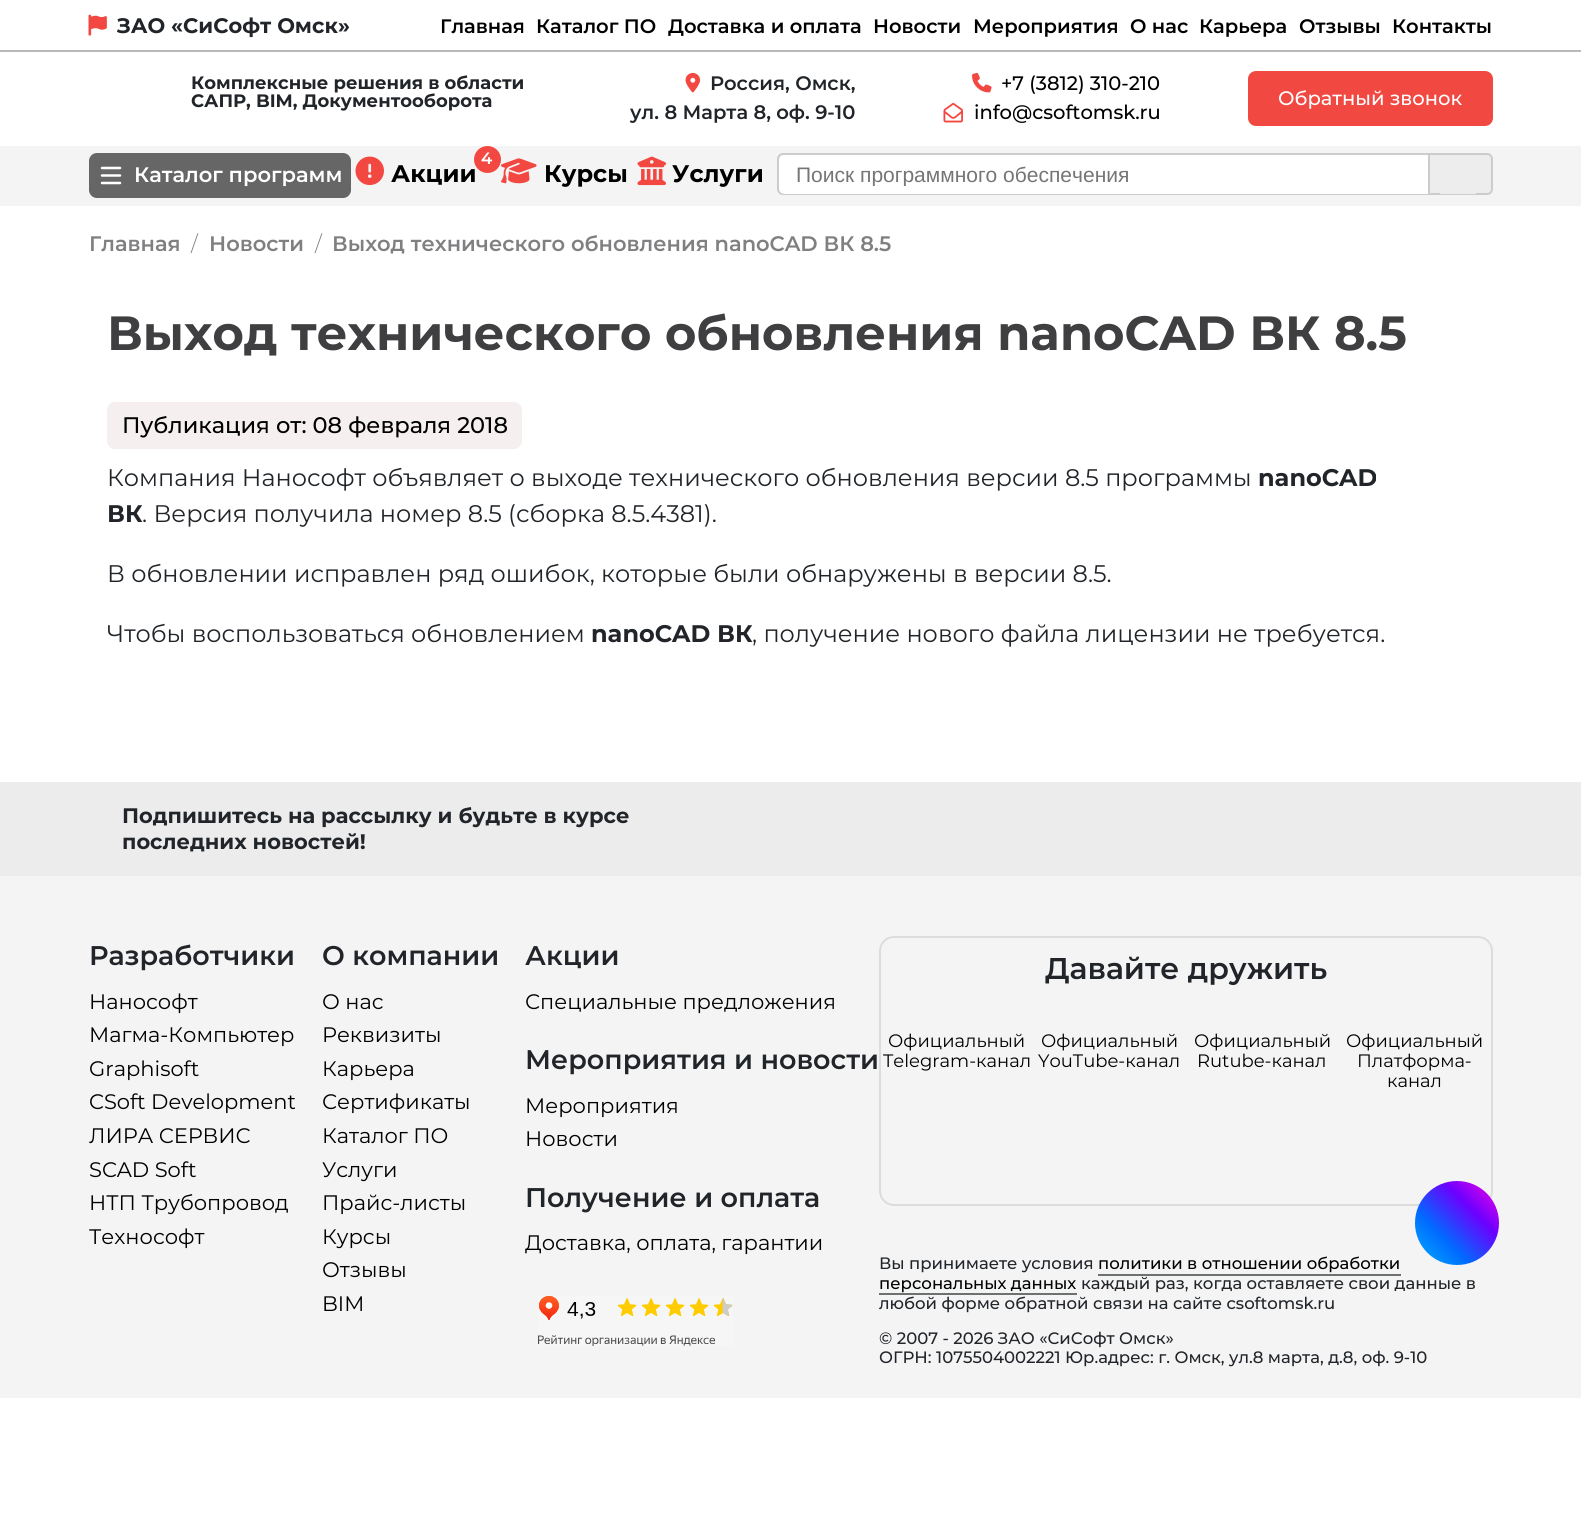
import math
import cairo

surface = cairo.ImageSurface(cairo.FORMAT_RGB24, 1581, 1531)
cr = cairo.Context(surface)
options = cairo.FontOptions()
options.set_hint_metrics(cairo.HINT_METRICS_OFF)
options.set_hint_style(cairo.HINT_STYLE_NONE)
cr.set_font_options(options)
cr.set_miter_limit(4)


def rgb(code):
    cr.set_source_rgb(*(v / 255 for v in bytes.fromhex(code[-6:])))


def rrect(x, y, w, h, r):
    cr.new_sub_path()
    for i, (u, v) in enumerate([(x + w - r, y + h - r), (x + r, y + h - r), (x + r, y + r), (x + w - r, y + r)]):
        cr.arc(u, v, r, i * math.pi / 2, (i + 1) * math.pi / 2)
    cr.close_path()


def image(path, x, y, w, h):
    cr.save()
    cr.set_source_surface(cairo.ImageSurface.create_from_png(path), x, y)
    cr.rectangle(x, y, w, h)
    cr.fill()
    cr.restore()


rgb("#ffffff")
cr.paint()
rgb("#b9b9b9")
cr.rectangle(0, 50, 1581, 2)
cr.fill()
image("img/1.png", 88, 14, 19, 22)
image("img/2.png", 685, 72, 16, 21)
image("img/3.png", 972, 72, 20, 21)
image("img/4.png", 943, 102, 20, 21)
rgb("#f14841")
rrect(1248, 71, 245, 55, 8)
cr.fill()
rgb("#f4f4f4")
cr.rectangle(0, 146, 1581, 60)
cr.fill()
rgb("#666666")
rrect(89, 153, 262, 45, 8)
cr.fill()
cr.new_path()
cr.move_to(120, 168)
cr.line_to(102, 168)
cr.move_to(120, 175.5)
cr.line_to(102, 175.5)
cr.move_to(102, 183)
cr.line_to(120, 183)
rgb("#ffffff")
cr.set_line_width(2.5)
cr.set_line_cap(cairo.LINE_CAP_ROUND)
cr.stroke()
image("img/5.png", 355, 156, 29, 30)
image("img/6.png", 501, 158, 36, 26)
image("img/7.png", 637, 156, 29, 30)
rgb("#ededed")
rrect(778, 154, 714, 40, 5)
cr.fill_preserve()
rgb("#cccccc")
cr.set_line_width(2)
cr.set_line_cap(cairo.LINE_CAP_BUTT)
cr.stroke()
rgb("#ffffff")
cr.new_path()
cr.move_to(785, 155)
cr.line_to(1430, 155)
cr.line_to(1430, 194)
cr.line_to(785, 194)
cr.curve_to(781.5, 194, 779, 191.5, 779, 188)
cr.line_to(779, 161)
cr.curve_to(779, 157.5, 781.5, 155, 785, 155)
cr.close_path()
cr.fill()
rgb("#cccccc")
cr.rectangle(1428, 155, 2, 39)
cr.fill()
rgb("#ededed")
cr.rectangle(1440, 193, 36, 1)
cr.fill()
rgb("#f5efef")
rrect(107, 402, 415, 47, 8)
cr.fill()
rgb("#ececec")
cr.rectangle(0, 782, 1581, 94)
cr.fill()
rgb("#f4f4f4")
cr.rectangle(0, 876, 1581, 522)
cr.fill()
image("img/8.png", 538, 1296, 195, 50)
rrect(880, 937, 612, 268, 14)
rgb("#dcdcdc")
cr.stroke()
rgb("#6e7172")
cr.rectangle(1098, 1274, 303, 2)
cr.fill()
cr.rectangle(879, 1293, 198, 2)
cr.fill()
gradient = cairo.LinearGradient(1415, 1265, 1499, 1181)
gradient.add_color_stop_rgba(0, 0, 0.698, 1, 1)
gradient.add_color_stop_rgba(0.33, 0, 0.416, 1, 1)
gradient.add_color_stop_rgba(0.67, 0.424, 0, 1, 1)
gradient.add_color_stop_rgba(1, 1, 0, 0.898, 1)
cr.set_source(gradient)
cr.arc(1457, 1223, 42, 0, 2 * math.pi)
cr.fill()
cr.select_font_face("Montserrat", cairo.FONT_SLANT_NORMAL, cairo.FONT_WEIGHT_BOLD)
cr.set_font_size(21)
rgb("#212529")
cr.move_to(117, 33)
cr.show_text("ЗАО «СиСофт Омск»")
cr.select_font_face("Montserrat SemiBold")
cr.set_font_size(19.5)
rgb("#000000")
for x, y, s in [
    (440, 33, "Главная"),
    (536, 33, "Каталог ПО"),
    (668, 33, "Доставка и оплата"),
    (873, 33, "Новости"),
    (973, 33, "Мероприятия"),
    (1130, 33, "О нас"),
    (1199, 33, "Карьера"),
    (1299, 33, "Отзывы"),
    (1392, 33, "Контакты"),
]:
    cr.move_to(x, y)
    cr.show_text(s)
cr.select_font_face("Montserrat", cairo.FONT_SLANT_NORMAL, cairo.FONT_WEIGHT_BOLD)
cr.set_font_size(18)
rgb("#212529")
cr.move_to(191, 89)
cr.show_text("Комплексные решения в области")
cr.move_to(191, 107)
cr.show_text("САПР, BIM, Документооборота")
cr.select_font_face("Montserrat SemiBold")
cr.set_font_size(19.5)
cr.move_to(710, 90)
cr.show_text("Россия, Омск,")
cr.move_to(630, 119)
cr.show_text("ул. 8 Марта 8, оф. 9-10")
cr.select_font_face("Montserrat Medium")
rgb("#000000")
cr.move_to(1001, 90)
cr.show_text("+7 (3812) 310-210")
cr.move_to(974, 119)
cr.show_text("info@csoftomsk.ru")
rgb("#ffffff")
cr.move_to(1278, 105)
cr.show_text("Обратный звонок")
cr.select_font_face("Montserrat SemiBold")
cr.set_font_size(21)
cr.move_to(134, 182)
cr.show_text("Каталог программ")
cr.select_font_face("Montserrat", cairo.FONT_SLANT_NORMAL, cairo.FONT_WEIGHT_BOLD)
cr.set_font_size(24)
rgb("#000000")
cr.move_to(391, 182)
cr.show_text("Акции")
rgb("#f24841")
cr.new_path()
cr.arc(487.5, 159.5, 13.5, 0, 2 * math.pi)
cr.fill()
cr.select_font_face("Montserrat SemiBold")
cr.set_font_size(16.5)
rgb("#ffffff")
cr.move_to(481, 164)
cr.show_text("4")
cr.select_font_face("Montserrat", cairo.FONT_SLANT_NORMAL, cairo.FONT_WEIGHT_BOLD)
cr.set_font_size(24)
rgb("#000000")
cr.move_to(544, 182)
cr.show_text("Курсы")
cr.move_to(672, 182)
cr.show_text("Услуги")
cr.save()
cr.rectangle(797, 162, 613, 24)
cr.clip()
cr.select_font_face("Liberation Sans")
cr.set_font_size(21)
rgb("#757575")
cr.move_to(796, 182)
cr.show_text("Поиск программного обеспечения")
cr.restore()
cr.select_font_face("Montserrat SemiBold")
cr.set_font_size(21)
rgb("#807f81")
cr.move_to(89, 251)
cr.show_text("Главная")
cr.select_font_face("Montserrat Light")
cr.move_to(191, 251)
cr.show_text("/")
cr.select_font_face("Montserrat SemiBold")
cr.move_to(209, 251)
cr.show_text("Новости")
cr.select_font_face("Montserrat Light")
cr.move_to(315, 251)
cr.show_text("/")
cr.select_font_face("Montserrat SemiBold")
cr.move_to(332, 251)
cr.show_text("Выход технического обновления nanoCAD ВК 8.5")
cr.select_font_face("Montserrat", cairo.FONT_SLANT_NORMAL, cairo.FONT_WEIGHT_BOLD)
cr.set_font_size(48)
rgb("#3f3e40")
cr.move_to(107, 350)
cr.show_text("Выход технического обновления nanoCAD ВК 8.5")
cr.select_font_face("Montserrat Medium")
cr.set_font_size(22.5)
rgb("#000000")
cr.move_to(122, 433)
cr.show_text("Публикация от: 08 февраля 2018")
cr.select_font_face("Montserrat")
cr.set_font_size(24)
rgb("#212529")
cr.move_to(107, 486)
cr.show_text("Компания Нанософт объявляет о выходе технического обновления версии 8.5 программы")
cr.select_font_face("Montserrat", cairo.FONT_SLANT_NORMAL, cairo.FONT_WEIGHT_BOLD)
cr.move_to(1258, 486)
cr.show_text("nanoCAD")
cr.move_to(107, 522)
cr.show_text("ВК")
cr.select_font_face("Montserrat")
for x, y, s in [
    (142, 522, ". Версия получила номер 8.5 (сборка 8.5.4381)."),
    (107, 582, "В обновлении исправлен ряд ошибок, которые были обнаружены в версии 8.5."),
    (107, 642, "Чтобы воспользоваться обновлением"),
]:
    cr.move_to(x, y)
    cr.show_text(s)
cr.select_font_face("Montserrat", cairo.FONT_SLANT_NORMAL, cairo.FONT_WEIGHT_BOLD)
cr.move_to(591, 642)
cr.show_text("nanoCAD ВК")
cr.select_font_face("Montserrat")
cr.move_to(752, 642)
cr.show_text(", получение нового файла лицензии не требуется.")
cr.select_font_face("Montserrat", cairo.FONT_SLANT_NORMAL, cairo.FONT_WEIGHT_BOLD)
cr.set_font_size(21)
cr.move_to(122, 823)
cr.show_text("Подпишитесь на рассылку и будьте в курсе")
cr.move_to(122, 849)
cr.show_text("последних новостей!")
cr.select_font_face("Montserrat SemiBold")
cr.set_font_size(27)
cr.move_to(89, 965)
cr.show_text("Разработчики")
cr.select_font_face("Montserrat")
cr.set_font_size(21)
rgb("#000000")
for x, y, s in [
    (89, 1009, "Нанософт"),
    (89, 1042, "Магма-Компьютер"),
    (89, 1076, "Graphisoft"),
    (89, 1109, "CSoft Development"),
    (89, 1143, "ЛИРА СЕРВИС"),
    (89, 1177, "SCAD Soft"),
    (89, 1210, "НТП Трубопровод"),
    (89, 1244, "Технософт"),
]:
    cr.move_to(x, y)
    cr.show_text(s)
cr.select_font_face("Montserrat SemiBold")
cr.set_font_size(27)
rgb("#212529")
cr.move_to(322, 965)
cr.show_text("О компании")
cr.select_font_face("Montserrat")
cr.set_font_size(21)
rgb("#000000")
for x, y, s in [
    (322, 1009, "О нас"),
    (322, 1042, "Реквизиты"),
    (322, 1076, "Карьера"),
    (322, 1109, "Сертификаты"),
    (322, 1143, "Каталог ПО"),
    (322, 1177, "Услуги"),
    (322, 1210, "Прайс-листы"),
    (322, 1244, "Курсы"),
    (322, 1277, "Отзывы"),
    (322, 1311, "BIM"),
]:
    cr.move_to(x, y)
    cr.show_text(s)
cr.select_font_face("Montserrat SemiBold")
cr.set_font_size(27)
rgb("#212529")
cr.move_to(525, 965)
cr.show_text("Акции")
cr.select_font_face("Montserrat")
cr.set_font_size(21)
rgb("#000000")
cr.move_to(525, 1009)
cr.show_text("Специальные предложения")
cr.select_font_face("Montserrat SemiBold")
cr.set_font_size(27)
rgb("#212529")
cr.move_to(525, 1069)
cr.show_text("Мероприятия и новости")
cr.select_font_face("Montserrat")
cr.set_font_size(21)
rgb("#000000")
cr.move_to(525, 1113)
cr.show_text("Мероприятия")
cr.move_to(525, 1146)
cr.show_text("Новости")
cr.select_font_face("Montserrat SemiBold")
cr.set_font_size(27)
rgb("#212529")
cr.move_to(525, 1207)
cr.show_text("Получение и оплата")
cr.select_font_face("Montserrat")
cr.set_font_size(21)
rgb("#000000")
cr.move_to(525, 1250)
cr.show_text("Доставка, оплата, гарантии")
cr.select_font_face("Montserrat SemiBold")
cr.set_font_size(30)
rgb("#212529")
cr.move_to(1045, 979)
cr.show_text("Давайте дружить")
cr.select_font_face("Montserrat")
cr.set_font_size(18)
rgb("#000000")
for x, y, s in [
    (888, 1047, "Официальный"),
    (883, 1067, "Telegram-канал"),
    (1041, 1047, "Официальный"),
    (1038, 1067, "YouTube-канал"),
    (1194, 1047, "Официальный"),
    (1197, 1067, "Rutube-канал"),
    (1346, 1047, "Официальный"),
    (1357, 1067, "Платформа-"),
    (1387, 1087, "канал"),
]:
    cr.move_to(x, y)
    cr.show_text(s)
cr.select_font_face("Montserrat Medium")
cr.set_font_size(16.5)
rgb("#212529")
cr.move_to(879, 1269)
cr.show_text("Вы принимаете условия")
rgb("#000000")
cr.move_to(1098, 1269)
cr.show_text("политики в отношении обработки")
cr.move_to(879, 1289)
cr.show_text("персональных данных")
rgb("#212529")
for x, y, s in [
    (1081, 1289, "каждый раз, когда оставляете свои данные в"),
    (879, 1309, "любой форме обратной связи на сайте csoftomsk.ru"),
    (879, 1344, "© 2007 - 2026 ЗАО «СиСофт Омск»"),
    (879, 1363, "ОГРН: 1075504002221 Юр.адрес: г. Омск, ул.8 марта, д.8, оф. 9-10"),
]:
    cr.move_to(x, y)
    cr.show_text(s)
surface.write_to_png("page.png")
